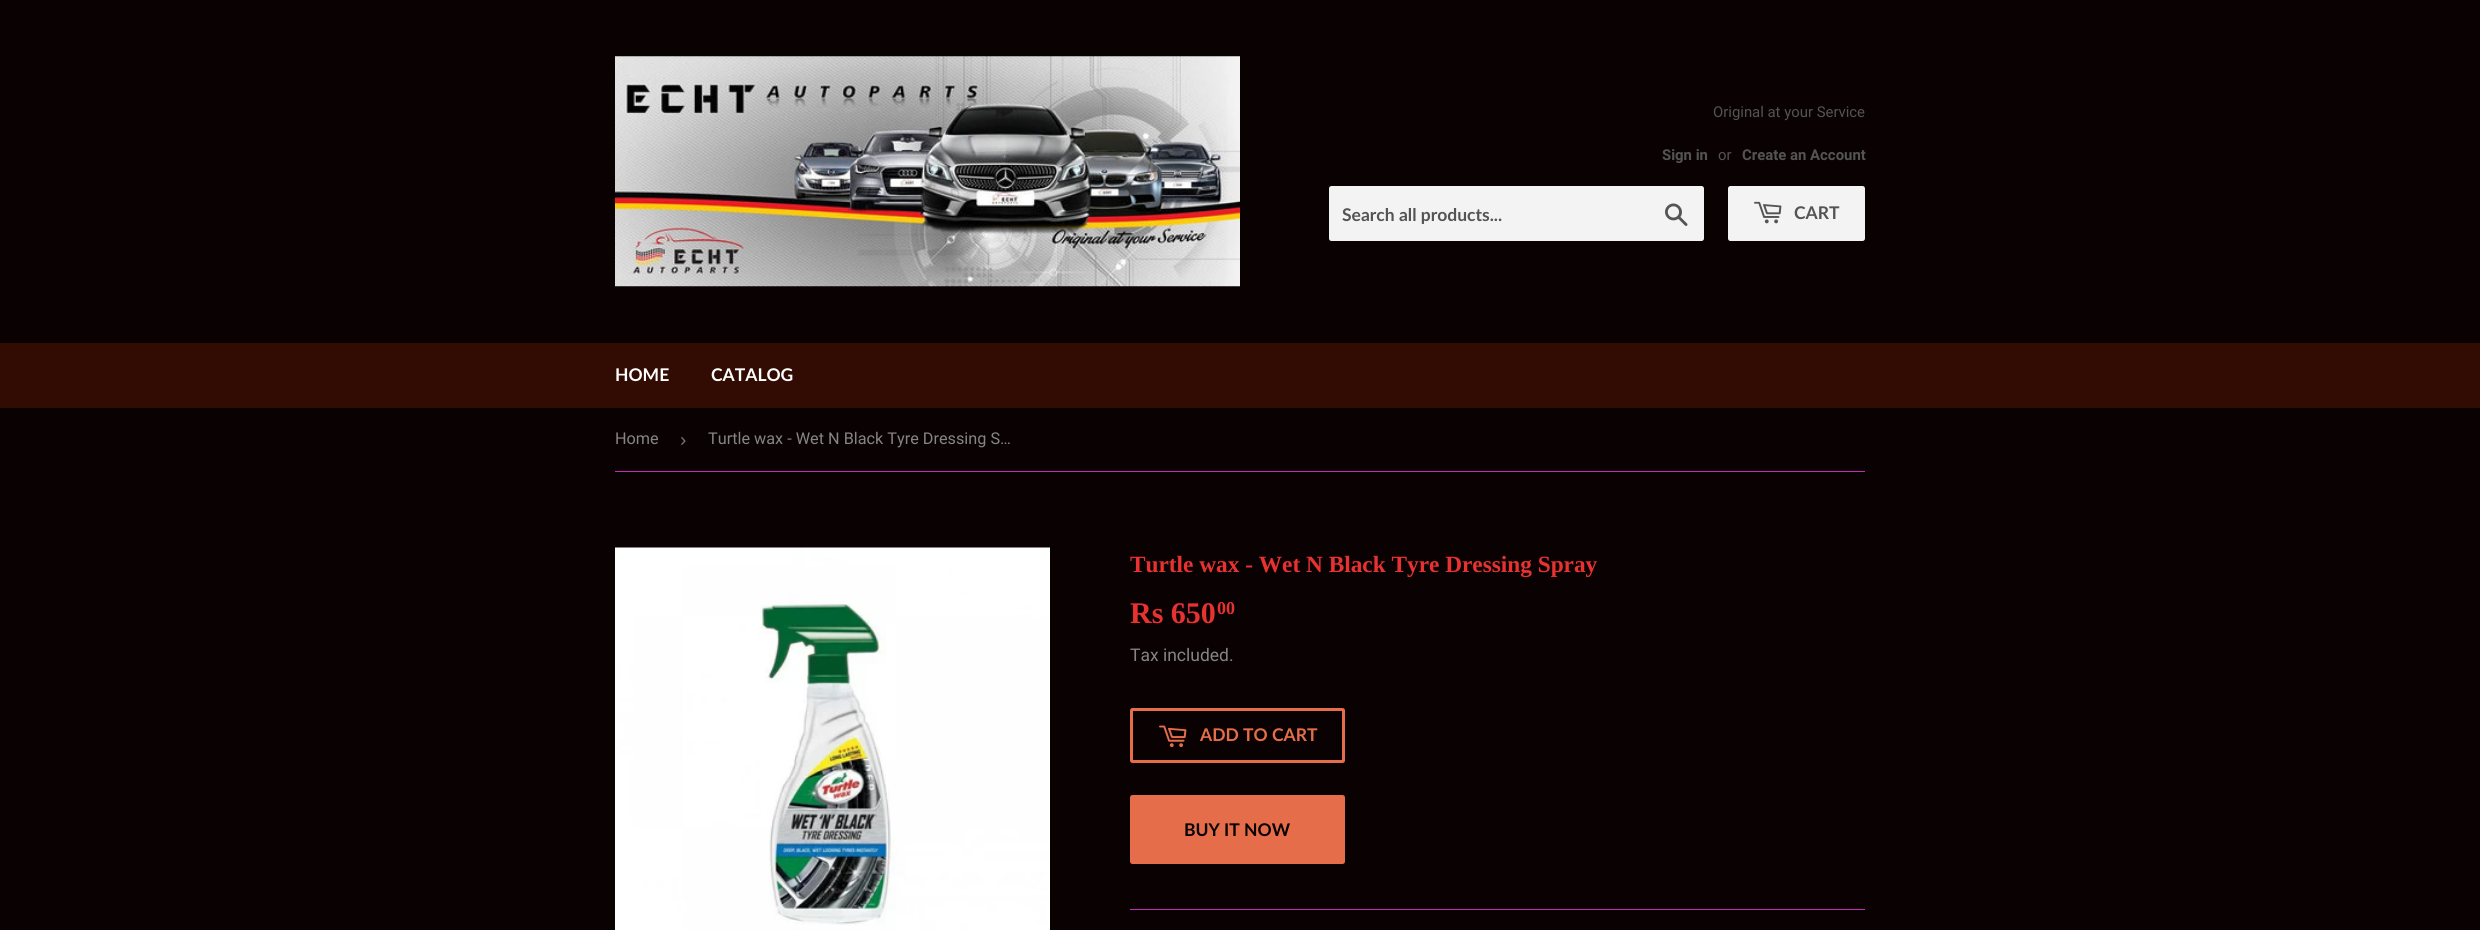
import math
import cairo

surface = cairo.ImageSurface(cairo.FORMAT_RGB24, 2480, 930)
cr = cairo.Context(surface)
options = cairo.FontOptions()
options.set_hint_metrics(cairo.HINT_METRICS_OFF)
options.set_hint_style(cairo.HINT_STYLE_NONE)
cr.set_font_options(options)
cr.set_miter_limit(4)


def rgb(code):
    cr.set_source_rgb(*(v / 255 for v in bytes.fromhex(code[-6:])))


def rrect(x, y, w, h, r):
    cr.new_sub_path()
    for i, (u, v) in enumerate([(x + w - r, y + h - r), (x + r, y + h - r), (x + r, y + r), (x + w - r, y + r)]):
        cr.arc(u, v, r, i * math.pi / 2, (i + 1) * math.pi / 2)
    cr.close_path()


def image(path, x, y, w, h):
    cr.save()
    cr.set_source_surface(cairo.ImageSurface.create_from_png(path), x, y)
    cr.rectangle(x, y, w, h)
    cr.fill()
    cr.restore()


rgb("#0a0202")
cr.paint()
image("img/1.png", 615, 56, 625, 231)
rgb("#f3f3f3")
rrect(1329, 186, 375, 55, 2.5)
cr.fill()
image("img/2.png", 1665, 203, 23, 23)
rrect(1728, 186, 137, 55, 2.5)
cr.fill()
image("img/3.png", 1754, 201, 28, 23)
rgb("#320b02")
cr.rectangle(0, 343, 2480, 65)
cr.fill()
rgb("#c52cb5")
cr.rectangle(615, 471, 1250, 1)
cr.fill()
image("img/4.png", 615, 547, 435, 383)
rrect(1131.5, 709.5, 212, 52, 1)
rgb("#e56d49")
cr.set_line_width(3)
cr.stroke()
image("img/5.png", 1159, 725, 28, 23)
rrect(1130, 795, 215, 69, 2.5)
cr.fill()
rgb("#c52cb5")
cr.rectangle(1130, 909, 735, 1)
cr.fill()
cr.select_font_face("Roboto")
cr.set_font_size(14.9)
rgb("#545454")
cr.move_to(1713, 117)
cr.show_text("Original at your Service")
cr.select_font_face("Roboto", cairo.FONT_SLANT_NORMAL, cairo.FONT_WEIGHT_BOLD)
cr.move_to(1662, 160)
cr.show_text("Sign in")
cr.select_font_face("Roboto")
cr.move_to(1718, 160)
cr.show_text("or")
cr.select_font_face("Roboto", cairo.FONT_SLANT_NORMAL, cairo.FONT_WEIGHT_BOLD)
cr.move_to(1742, 160)
cr.show_text("Create an Account")
cr.select_font_face("Lato", cairo.FONT_SLANT_NORMAL, cairo.FONT_WEIGHT_BOLD)
cr.set_font_size(17.5)
cr.move_to(1342, 221)
cr.show_text("Search all products...")
cr.move_to(1794, 219)
cr.show_text("CART")
rgb("#ffffff")
cr.move_to(615, 381)
cr.show_text("HOME")
cr.move_to(711, 381)
cr.show_text("CATALOG")
cr.select_font_face("Roboto")
cr.set_font_size(16.25)
rgb("#858585")
cr.move_to(615, 444)
cr.show_text("Home")
cr.select_font_face("Liberation Sans")
cr.set_font_size(19)
rgb("#767676")
cr.move_to(680, 446)
cr.show_text("›")
cr.select_font_face("Roboto")
cr.set_font_size(16.25)
rgb("#858585")
cr.move_to(708, 444)
cr.show_text("Turtle wax - Wet N Black Tyre Dressing S…")
cr.select_font_face("Liberation Serif", cairo.FONT_SLANT_NORMAL, cairo.FONT_WEIGHT_BOLD)
cr.set_font_size(23.3)
rgb("#e83232")
cr.move_to(1130, 572)
cr.show_text("Turtle wax - Wet N Black Tyre Dressing Spray")
cr.set_font_size(30)
cr.move_to(1130, 623)
cr.show_text("Rs 650")
cr.set_font_size(18)
cr.move_to(1217, 614)
cr.show_text("00")
cr.select_font_face("Roboto")
cr.set_font_size(17.5)
rgb("#858585")
cr.move_to(1130, 661)
cr.show_text("Tax included.")
cr.select_font_face("Lato", cairo.FONT_SLANT_NORMAL, cairo.FONT_WEIGHT_BOLD)
rgb("#e56d49")
cr.move_to(1200, 741)
cr.show_text("ADD TO CART")
rgb("#0a0202")
cr.move_to(1184, 836)
cr.show_text("BUY IT NOW")
surface.write_to_png("page.png")
